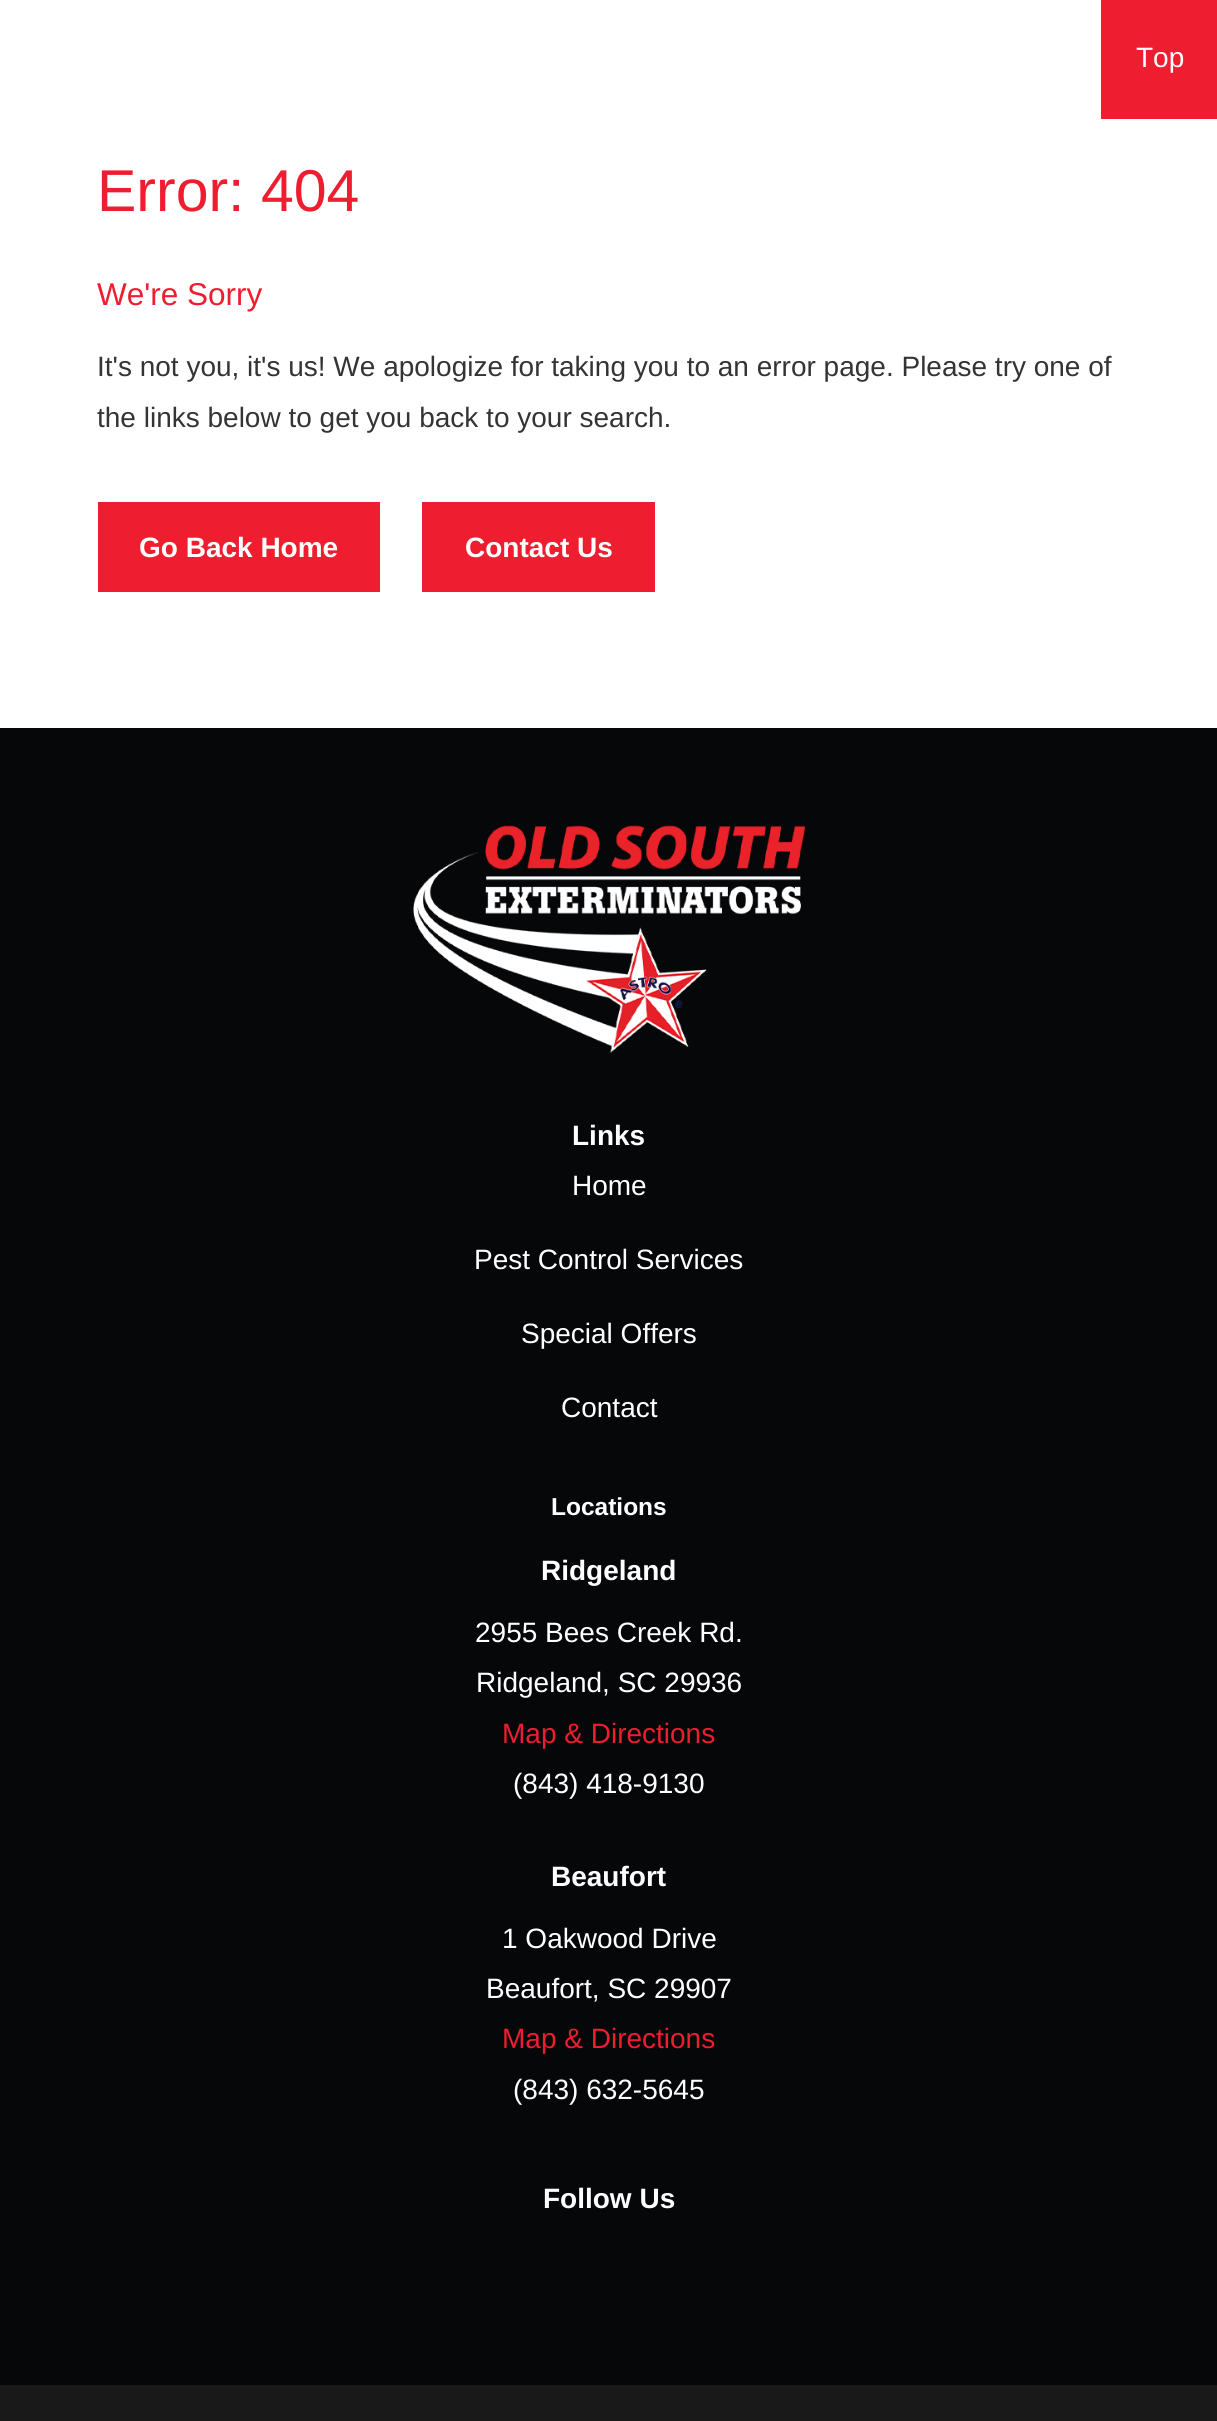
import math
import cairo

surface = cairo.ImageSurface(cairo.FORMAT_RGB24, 1217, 2421)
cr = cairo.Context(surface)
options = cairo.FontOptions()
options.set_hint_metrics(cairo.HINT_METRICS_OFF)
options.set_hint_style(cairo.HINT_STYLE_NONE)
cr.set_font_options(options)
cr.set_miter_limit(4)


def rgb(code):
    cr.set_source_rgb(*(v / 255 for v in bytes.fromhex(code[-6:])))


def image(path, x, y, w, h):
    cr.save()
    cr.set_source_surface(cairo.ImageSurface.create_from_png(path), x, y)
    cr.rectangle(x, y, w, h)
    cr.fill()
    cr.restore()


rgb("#ffffff")
cr.paint()
for x, y, w, h, color in [
    (1101, 0, 116, 119, "#ee1d2f"),
    (98, 502, 282, 90, "#ee1d2f"),
    (422, 502, 233, 90, "#ee1d2f"),
    (0, 728, 1217, 1657, "#050709"),
]:
    rgb(color)
    cr.rectangle(x, y, w, h)
    cr.fill()
image("img/1.png", 413, 825, 392, 228)
rgb("#191919")
cr.rectangle(0, 2385, 1217, 36)
cr.fill()
cr.select_font_face("Liberation Sans")
cr.set_font_size(28)
rgb("#ffffff")
cr.move_to(1136, 67)
cr.show_text("Top")
cr.set_font_size(59)
rgb("#ee1d2f")
cr.move_to(97, 211)
cr.show_text("Error: 404")
cr.set_font_size(31.5)
cr.move_to(97, 305)
cr.show_text("We're Sorry")
cr.set_font_size(28)
rgb("#343434")
cr.move_to(97, 376)
cr.show_text("It's not you, it's us! We apologize for taking you to an error page. Please try one of")
cr.move_to(97, 427)
cr.show_text("the links below to get you back to your search.")
cr.select_font_face("Liberation Sans", cairo.FONT_SLANT_NORMAL, cairo.FONT_WEIGHT_BOLD)
rgb("#ffffff")
for x, y, s in [
    (139, 557, "Go Back Home"),
    (465, 557, "Contact Us"),
    (572, 1145, "Links"),
]:
    cr.move_to(x, y)
    cr.show_text(s)
cr.select_font_face("Liberation Sans")
for x, y, s in [
    (572, 1195, "Home"),
    (474, 1269, "Pest Control Services"),
    (521, 1343, "Special Offers"),
    (561, 1417, "Contact"),
]:
    cr.move_to(x, y)
    cr.show_text(s)
cr.select_font_face("Liberation Sans", cairo.FONT_SLANT_NORMAL, cairo.FONT_WEIGHT_BOLD)
cr.set_font_size(24.5)
cr.move_to(551, 1515)
cr.show_text("Locations")
cr.set_font_size(28)
cr.move_to(541, 1580)
cr.show_text("Ridgeland")
cr.select_font_face("Liberation Sans")
cr.move_to(475, 1642)
cr.show_text("2955 Bees Creek Rd.")
cr.move_to(476, 1692)
cr.show_text("Ridgeland, SC 29936")
rgb("#ee1d2f")
cr.move_to(502, 1743)
cr.show_text("Map & Directions")
rgb("#ffffff")
cr.move_to(513, 1793)
cr.show_text("(843) 418-9130")
cr.select_font_face("Liberation Sans", cairo.FONT_SLANT_NORMAL, cairo.FONT_WEIGHT_BOLD)
cr.move_to(551, 1886)
cr.show_text("Beaufort")
cr.select_font_face("Liberation Sans")
cr.move_to(502, 1948)
cr.show_text("1 Oakwood Drive")
cr.move_to(486, 1998)
cr.show_text("Beaufort, SC 29907")
rgb("#ee1d2f")
cr.move_to(502, 2048)
cr.show_text("Map & Directions")
rgb("#ffffff")
cr.move_to(513, 2099)
cr.show_text("(843) 632-5645")
cr.select_font_face("Liberation Sans", cairo.FONT_SLANT_NORMAL, cairo.FONT_WEIGHT_BOLD)
cr.move_to(543, 2208)
cr.show_text("Follow Us")
surface.write_to_png("page.png")
